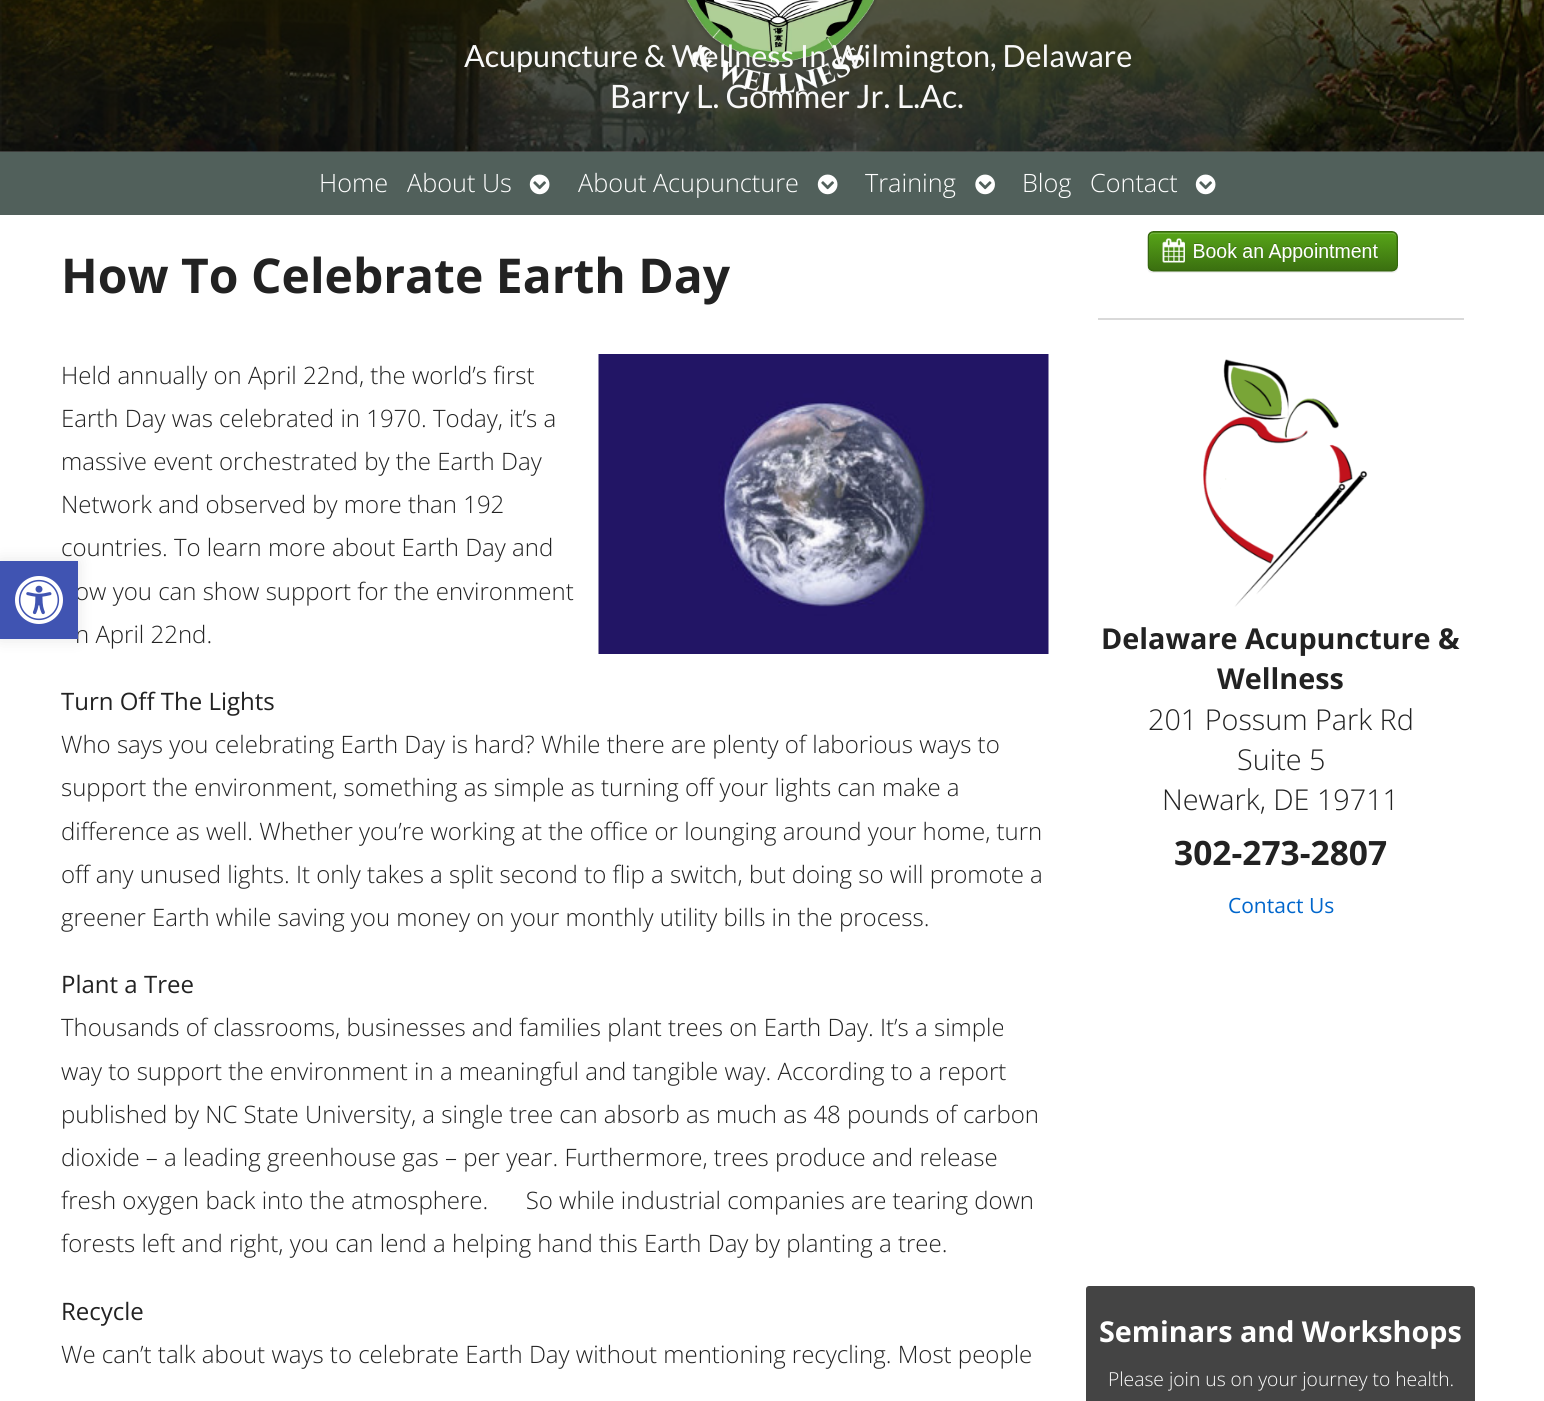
import math
import cairo

surface = cairo.ImageSurface(cairo.FORMAT_RGB24, 1544, 1401)
cr = cairo.Context(surface)
options = cairo.FontOptions()
options.set_hint_metrics(cairo.HINT_METRICS_OFF)
options.set_hint_style(cairo.HINT_STYLE_NONE)
cr.set_font_options(options)
cr.set_miter_limit(4)


def rgb(code):
    cr.set_source_rgb(*(v / 255 for v in bytes.fromhex(code[-6:])))


def rrect(x, y, w, h, r):
    cr.new_sub_path()
    for i, (u, v) in enumerate([(x + w - r, y + h - r), (x + r, y + h - r), (x + r, y + r), (x + w - r, y + r)]):
        cr.arc(u, v, r, i * math.pi / 2, (i + 1) * math.pi / 2)
    cr.close_path()


def soft_shadow(x, y, w, h, r, blur, alpha):
    cr.push_group_with_content(cairo.CONTENT_ALPHA)
    cr.set_operator(cairo.OPERATOR_SOURCE)
    for i in range(15, -16, -2):
        e = blur * i / 6
        if min(w, h) + 2 * e > 0:
            cr.set_source_rgba(0, 0, 0, alpha * math.erfc((i - 1) / 8.5) / 2)
            rrect(x - e, y - e, w + 2 * e, h + 2 * e, max(0, min(r + e + blur * .6, min(w, h) / 2 + e)))
            cr.fill()
    cr.mask(cr.pop_group())


def image(path, x, y, w, h):
    cr.save()
    cr.set_source_surface(cairo.ImageSurface.create_from_png(path), x, y)
    cr.rectangle(x, y, w, h)
    cr.fill()
    cr.restore()


rgb("#ffffff")
cr.paint()
rgb("#000000")
soft_shadow(0, 561, 78, 78, 0, 7.5, 0.1)
image("img/2.png", 0, 0, 1544, 152)
cr.set_source_rgba(0, 0, 0, 0.6)
cr.rectangle(0, 0, 1544, 152)
cr.fill()
image("img/3.png", 684, 0, 193, 95)
rgb("#51605b")
cr.rectangle(0, 152, 1544, 63)
cr.fill()
image("img/4.png", 529, 174, 21, 21)
image("img/4.png", 817, 174, 21, 21)
image("img/5.png", 975, 174, 20, 21)
image("img/4.png", 1195, 174, 21, 21)
image("img/6.png", 598, 354, 451, 300)
image("img/7.png", 1147, 231, 251, 42)
rgb("#d9d9d9")
cr.rectangle(1098, 318, 366, 2)
cr.fill()
image("img/8.png", 1203, 359, 165, 248)
rgb("#444444")
rrect(1086, 1286, 389, 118, 3)
cr.fill()
cr.select_font_face("Lato")
cr.set_font_size(30.6)
rgb("#f9f9f9")
cr.move_to(464, 67)
cr.show_text("Acupuncture & Wellness In Wilmington, Delaware")
cr.set_font_size(32.25)
cr.move_to(610, 108)
cr.show_text("Barry L. Gommer Jr. L.Ac.")
cr.select_font_face("Open Sans Light")
cr.set_font_size(25.25)
rgb("#ffffff")
for x, y, s in [
    (319, 192, "Home"),
    (407, 192, "About Us"),
    (578, 192, "About Acupuncture"),
    (865, 192, "Training"),
    (1022, 192, "Blog"),
    (1090, 192, "Contact"),
]:
    cr.move_to(x, y)
    cr.show_text(s)
cr.select_font_face("Open Sans", cairo.FONT_SLANT_NORMAL, cairo.FONT_WEIGHT_BOLD)
cr.set_font_size(48)
rgb("#222222")
cr.move_to(61, 293)
cr.show_text("How To Celebrate Earth Day")
cr.select_font_face("Open Sans Light")
cr.set_font_size(24)
for x, y, s in [
    (61, 384, "Held annually on April 22nd, the world’s first"),
    (61, 427, "Earth Day was celebrated in 1970. Today, it’s a"),
    (61, 470, "massive event orchestrated by the Earth Day"),
    (61, 513, "Network and observed by more than 192"),
    (61, 556, "countries. To learn more about Earth Day and"),
    (75, 600, "ow you can show support for the environment"),
    (75, 643, "n April 22nd."),
]:
    cr.move_to(x, y)
    cr.show_text(s)
rgb("#4054b2")
cr.rectangle(0, 561, 78, 78)
cr.fill()
image("img/1.png", 15, 576, 48, 48)
cr.select_font_face("Open Sans")
rgb("#222222")
cr.move_to(61, 710)
cr.show_text("Turn Off The Lights")
cr.select_font_face("Open Sans Light")
for x, y, s in [
    (61, 753, "Who says you celebrating Earth Day is hard? While there are plenty of laborious ways to"),
    (61, 796, "support the environment, something as simple as turning off your lights can make a"),
    (61, 840, "difference as well. Whether you’re working at the office or lounging around your home, turn"),
    (61, 883, "off any unused lights. It only takes a split second to flip a switch, but doing so will promote a"),
    (61, 926, "greener Earth while saving you money on your monthly utility bills in the process."),
]:
    cr.move_to(x, y)
    cr.show_text(s)
cr.select_font_face("Open Sans")
cr.move_to(61, 993)
cr.show_text("Plant a Tree")
cr.select_font_face("Open Sans Light")
for x, y, s in [
    (61, 1036, "Thousands of classrooms, businesses and families plant trees on Earth Day. It’s a simple"),
    (61, 1080, "way to support the environment in a meaningful and tangible way. According to a report"),
    (61, 1123, "published by NC State University, a single tree can absorb as much as 48 pounds of carbon"),
    (61, 1166, "dioxide – a leading greenhouse gas – per year. Furthermore, trees produce and release"),
    (61, 1209, "fresh oxygen back into the atmosphere.      So while industrial companies are tearing down"),
    (61, 1252, "forests left and right, you can lend a helping hand this Earth Day by planting a tree."),
]:
    cr.move_to(x, y)
    cr.show_text(s)
cr.select_font_face("Open Sans")
cr.move_to(61, 1320)
cr.show_text("Recycle")
cr.select_font_face("Open Sans Light")
cr.move_to(61, 1363)
cr.show_text("We can’t talk about ways to celebrate Earth Day without mentioning recycling. Most people")
cr.select_font_face("Open Sans", cairo.FONT_SLANT_NORMAL, cairo.FONT_WEIGHT_BOLD)
cr.set_font_size(28.75)
cr.move_to(1101, 649)
cr.show_text("Delaware Acupuncture &")
cr.move_to(1217, 689)
cr.show_text("Wellness")
cr.select_font_face("Open Sans Light")
for x, y, s in [
    (1148, 730, "201 Possum Park Rd"),
    (1237, 770, "Suite 5"),
    (1162, 810, "Newark, DE 19711"),
]:
    cr.move_to(x, y)
    cr.show_text(s)
cr.select_font_face("Open Sans", cairo.FONT_SLANT_NORMAL, cairo.FONT_WEIGHT_BOLD)
cr.set_font_size(33.5)
cr.move_to(1174, 865)
cr.show_text("302-273-2807")
cr.select_font_face("Open Sans")
cr.set_font_size(21)
rgb("#0066cc")
cr.move_to(1228, 913)
cr.show_text("Contact Us")
cr.select_font_face("Open Sans", cairo.FONT_SLANT_NORMAL, cairo.FONT_WEIGHT_BOLD)
cr.set_font_size(28.75)
rgb("#ffffff")
cr.move_to(1099, 1342)
cr.show_text("Seminars and Workshops")
cr.select_font_face("Open Sans Light")
cr.set_font_size(19.25)
cr.move_to(1108, 1386)
cr.show_text("Please join us on your journey to health.")
surface.write_to_png("page.png")
